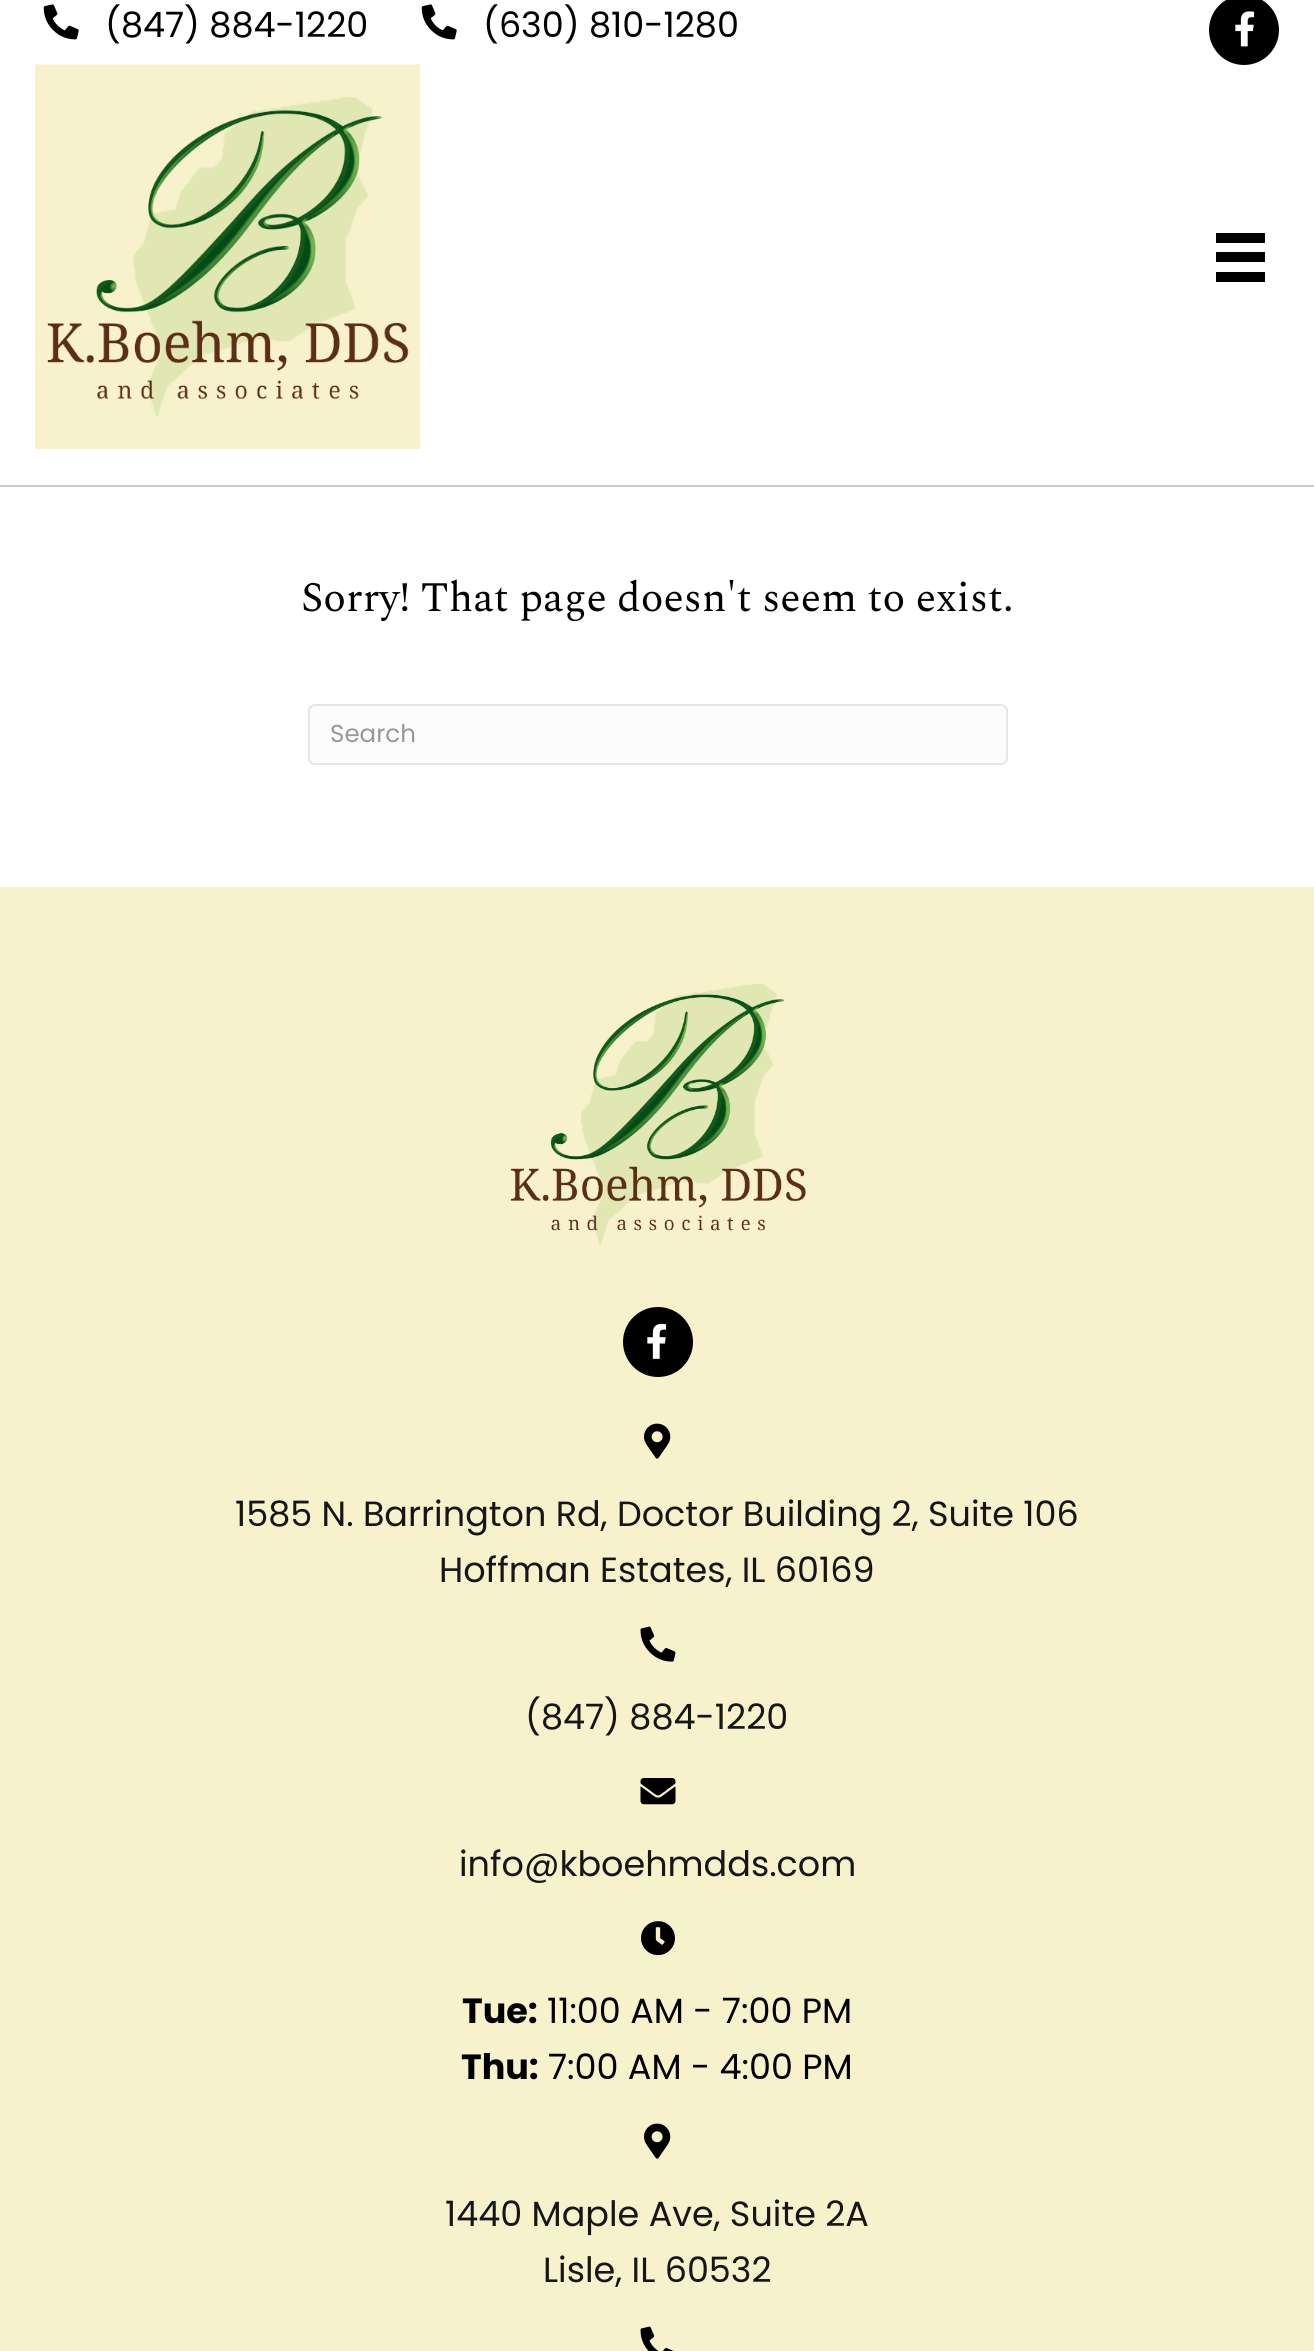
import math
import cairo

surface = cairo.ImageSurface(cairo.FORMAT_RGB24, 1314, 2351)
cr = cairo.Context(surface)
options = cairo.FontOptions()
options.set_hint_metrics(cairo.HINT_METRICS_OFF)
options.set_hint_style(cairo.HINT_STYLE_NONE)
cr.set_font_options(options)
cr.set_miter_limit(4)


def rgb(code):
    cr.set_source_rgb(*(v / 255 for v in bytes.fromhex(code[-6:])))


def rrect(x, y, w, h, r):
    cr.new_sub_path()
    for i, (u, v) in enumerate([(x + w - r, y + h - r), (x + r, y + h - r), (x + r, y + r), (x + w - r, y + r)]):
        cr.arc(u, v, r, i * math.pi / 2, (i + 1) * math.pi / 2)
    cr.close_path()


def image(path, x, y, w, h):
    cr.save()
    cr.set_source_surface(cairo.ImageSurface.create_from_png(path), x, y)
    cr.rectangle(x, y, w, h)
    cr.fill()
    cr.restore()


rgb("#ffffff")
cr.paint()
rgb("#cbcbcb")
cr.rectangle(0, 485, 1314, 2)
cr.fill()
image("img/1.png", 43, 4, 36, 36)
image("img/1.png", 421, 4, 36, 36)
rgb("#000000")
cr.arc(1244, 30, 35, 0, 2 * math.pi)
cr.fill()
image("img/2.png", 1235, 11, 20, 36)
image("img/3.png", 35, 64, 385, 385)
for x, y, w, h, color in [
    (1216, 233, 49, 10, "#000000"),
    (1216, 252, 49, 10, "#000000"),
    (1216, 272, 49, 10, "#000000"),
]:
    rgb(color)
    cr.rectangle(x, y, w, h)
    cr.fill()
rgb("#fcfcfc")
rrect(309, 705, 698, 59, 6)
cr.fill_preserve()
rgb("#e6e6e6")
cr.stroke()
rgb("#f7f1cc")
cr.rectangle(0, 887, 1314, 1464)
cr.fill()
image("img/4.png", 510, 984, 296, 261)
rgb("#000000")
cr.arc(658, 1342, 35, 0, 2 * math.pi)
cr.fill()
image("img/5.png", 647, 1323, 20, 36)
image("img/6.png", 644, 1423, 27, 36)
image("img/7.png", 640, 1626, 36, 36)
image("img/8.png", 640, 1778, 36, 27)
image("img/9.png", 641, 1921, 34, 35)
image("img/6.png", 644, 2123, 27, 36)
image("img/10.png", 640, 2326, 34, 25)
cr.select_font_face("Poppins")
cr.set_font_size(35)
cr.move_to(105, 37)
cr.show_text("(847) 884-1220")
cr.move_to(483, 37)
cr.show_text("(630) 810-1280")
cr.select_font_face("Spectral")
cr.set_font_size(42)
cr.move_to(301, 611)
cr.show_text("Sorry! That page doesn't seem to exist.")
cr.select_font_face("Poppins")
cr.set_font_size(24.5)
rgb("#979797")
cr.move_to(330, 742)
cr.show_text("Search")
cr.set_font_size(35)
rgb("#161616")
for x, y, s in [
    (235, 1526, "1585 N. Barrington Rd, Doctor Building 2, Suite 106"),
    (439, 1582, "Hoffman Estates, IL 60169"),
    (525, 1729, "(847) 884-1220"),
    (459, 1876, "info@kboehmdds.com"),
]:
    cr.move_to(x, y)
    cr.show_text(s)
cr.select_font_face("Poppins", cairo.FONT_SLANT_NORMAL, cairo.FONT_WEIGHT_BOLD)
rgb("#000000")
cr.move_to(462, 2023)
cr.show_text("Tue:")
cr.select_font_face("Poppins")
cr.move_to(547, 2023)
cr.show_text("11:00 AM - 7:00 PM")
cr.select_font_face("Poppins", cairo.FONT_SLANT_NORMAL, cairo.FONT_WEIGHT_BOLD)
cr.move_to(461, 2079)
cr.show_text("Thu:")
cr.select_font_face("Poppins")
cr.move_to(548, 2079)
cr.show_text("7:00 AM - 4:00 PM")
rgb("#161616")
cr.move_to(445, 2226)
cr.show_text("1440 Maple Ave, Suite 2A")
cr.move_to(543, 2282)
cr.show_text("Lisle, IL 60532")
surface.write_to_png("page.png")
